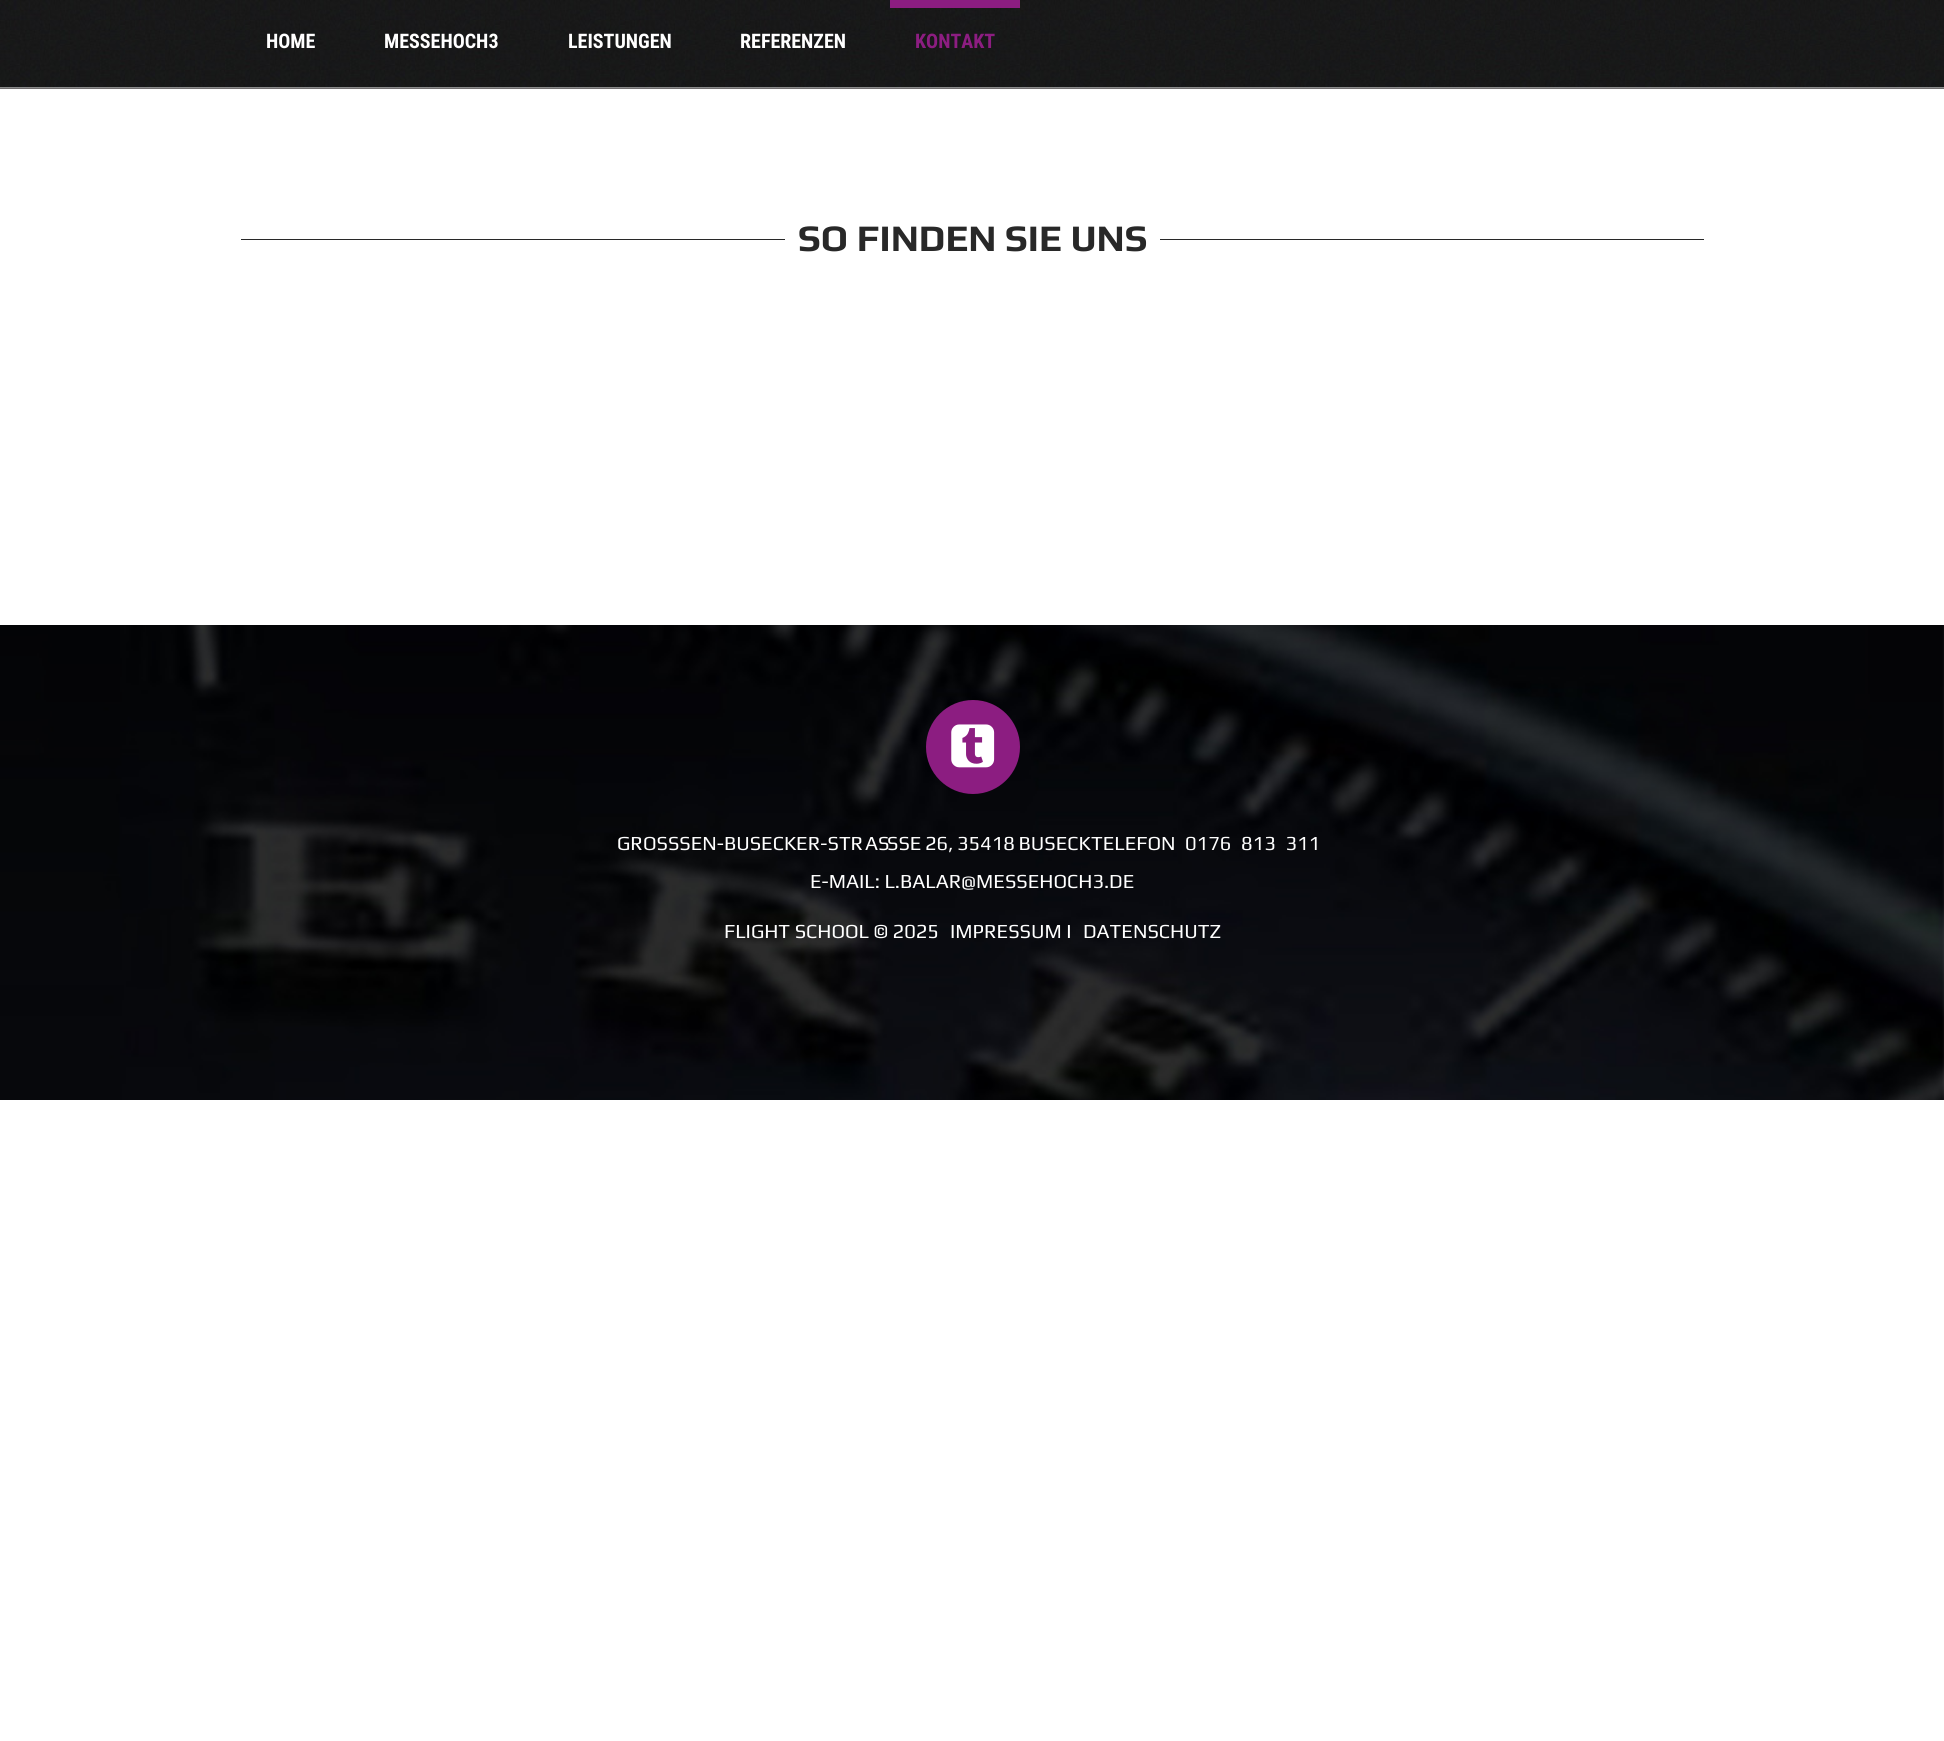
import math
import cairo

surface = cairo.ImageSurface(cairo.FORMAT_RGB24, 1944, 1741)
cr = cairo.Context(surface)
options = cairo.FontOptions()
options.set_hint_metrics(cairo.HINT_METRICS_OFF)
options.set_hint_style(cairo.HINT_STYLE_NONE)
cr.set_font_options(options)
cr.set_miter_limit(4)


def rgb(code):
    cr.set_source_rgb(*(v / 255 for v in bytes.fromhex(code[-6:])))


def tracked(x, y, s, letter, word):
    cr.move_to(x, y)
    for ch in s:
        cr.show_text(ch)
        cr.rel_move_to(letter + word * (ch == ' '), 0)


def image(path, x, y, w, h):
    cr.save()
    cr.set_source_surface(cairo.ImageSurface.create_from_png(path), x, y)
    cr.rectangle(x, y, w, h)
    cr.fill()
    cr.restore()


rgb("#ffffff")
cr.paint()
image("img/1.png", 0, 0, 1944, 88)
for x, y, w, h, color in [
    (890, 0, 130, 8, "#8c1d81"),
    (0, 88, 1944, 1, "#706d6e"),
    (241, 239, 1463, 1, "#282828"),
    (785, 239, 375, 1, "#ffffff"),
]:
    rgb(color)
    cr.rectangle(x, y, w, h)
    cr.fill()
image("img/2.png", 0, 625, 1944, 475)
rgb("#8c1d81")
cr.arc(973, 747, 47, 0, 2 * math.pi)
cr.fill()
image("img/3.png", 951, 724, 44, 44)
cr.select_font_face("Roboto Condensed", cairo.FONT_SLANT_NORMAL, cairo.FONT_WEIGHT_BOLD)
cr.set_font_size(20)
rgb("#ffffff")
for x, y, s in [
    (266, 48, "HOME"),
    (384, 48, "MESSEHOCH3"),
    (568, 48, "LEISTUNGEN"),
    (740, 48, "REFERENZEN"),
]:
    cr.move_to(x, y)
    cr.show_text(s)
rgb("#8c1d81")
cr.move_to(915, 48)
cr.show_text("KONTAKT")
cr.select_font_face("Play", cairo.FONT_SLANT_NORMAL, cairo.FONT_WEIGHT_BOLD)
cr.set_font_size(37.5)
rgb("#282828")
cr.move_to(798, 251)
cr.show_text("SO FINDEN SIE UNS")
cr.select_font_face("Play")
cr.set_font_size(20)
rgb("#ffffff")
cr.move_to(617, 850)
cr.show_text("GROSSSEN-BUSECKER-STR")
cr.move_to(865, 850)
cr.show_text("AS")
tracked(887, 850, "SSE 26, 35418 BUSECK", 0, -1)
cr.move_to(1091, 850)
cr.show_text("TELEFON")
tracked(1185, 850, "0176 813 311", 0, 5)
for x, y, s in [
    (810, 888, "E-MAIL: L.BALAR@MESSEHOCH3.DE"),
    (724, 938, "FLIGHT SCHOOL © 2025"),
    (950, 938, "IMPRESSUM I"),
    (1083, 938, "DATENSCHUTZ"),
]:
    cr.move_to(x, y)
    cr.show_text(s)
surface.write_to_png("page.png")
